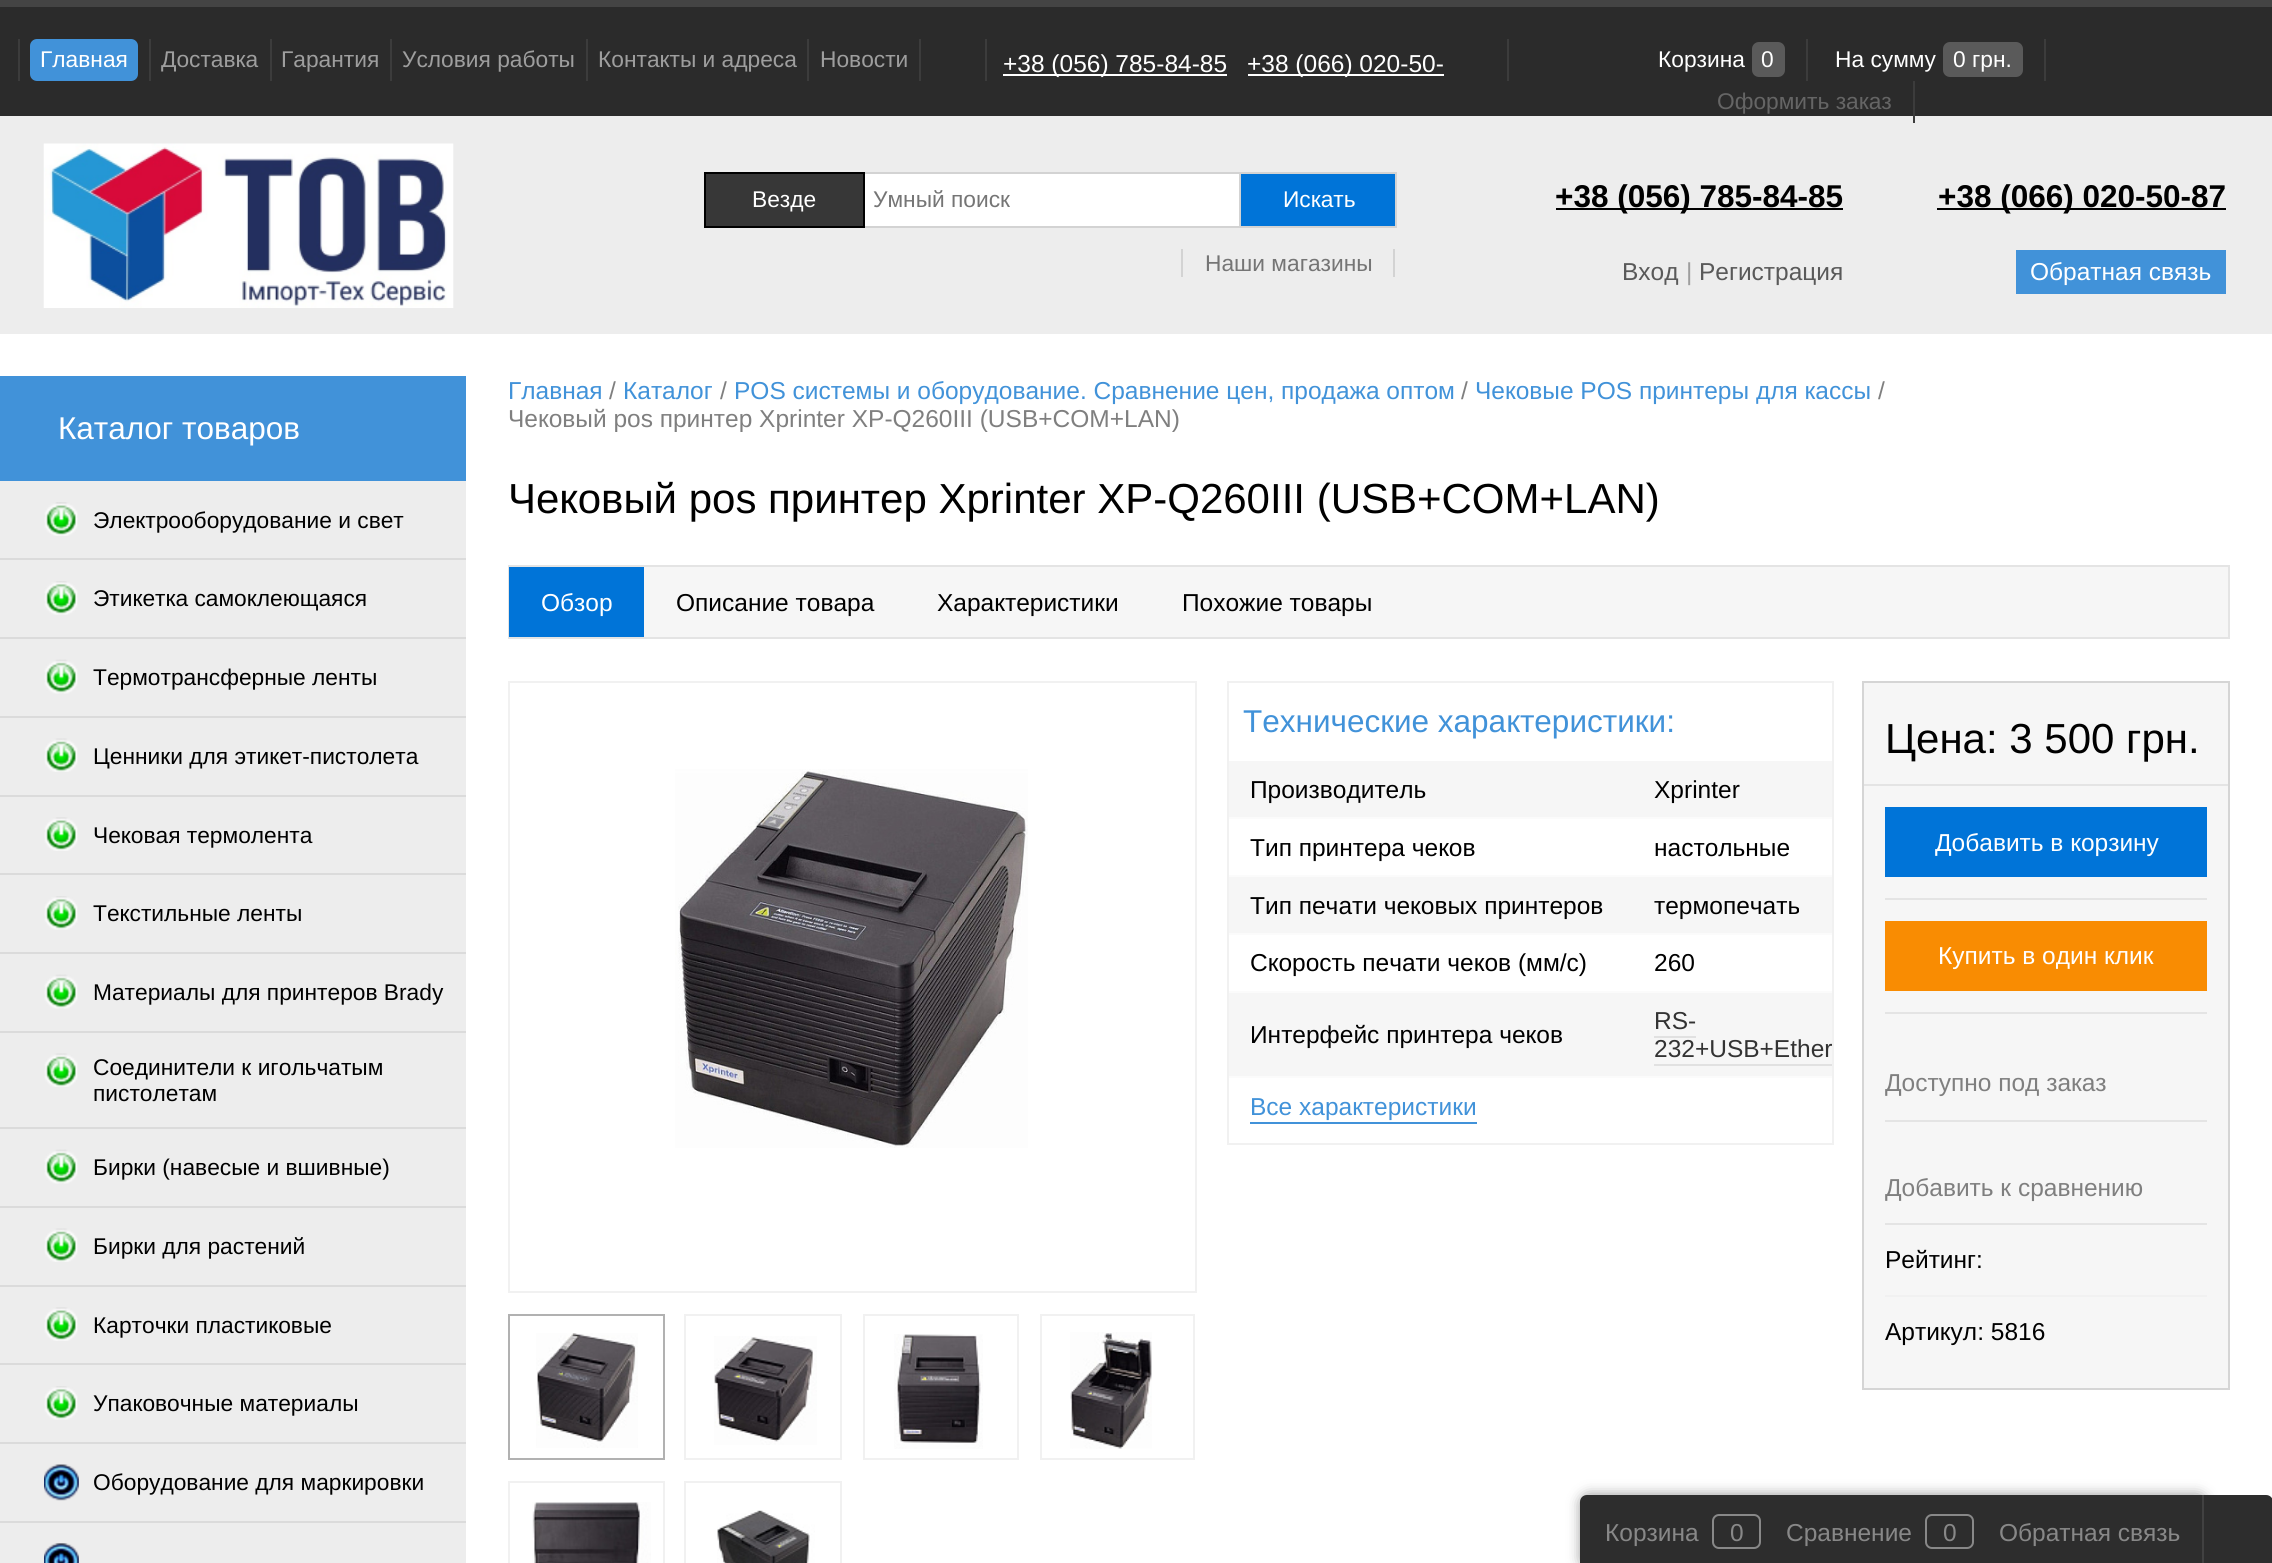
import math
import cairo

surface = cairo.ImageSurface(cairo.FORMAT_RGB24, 2272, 1563)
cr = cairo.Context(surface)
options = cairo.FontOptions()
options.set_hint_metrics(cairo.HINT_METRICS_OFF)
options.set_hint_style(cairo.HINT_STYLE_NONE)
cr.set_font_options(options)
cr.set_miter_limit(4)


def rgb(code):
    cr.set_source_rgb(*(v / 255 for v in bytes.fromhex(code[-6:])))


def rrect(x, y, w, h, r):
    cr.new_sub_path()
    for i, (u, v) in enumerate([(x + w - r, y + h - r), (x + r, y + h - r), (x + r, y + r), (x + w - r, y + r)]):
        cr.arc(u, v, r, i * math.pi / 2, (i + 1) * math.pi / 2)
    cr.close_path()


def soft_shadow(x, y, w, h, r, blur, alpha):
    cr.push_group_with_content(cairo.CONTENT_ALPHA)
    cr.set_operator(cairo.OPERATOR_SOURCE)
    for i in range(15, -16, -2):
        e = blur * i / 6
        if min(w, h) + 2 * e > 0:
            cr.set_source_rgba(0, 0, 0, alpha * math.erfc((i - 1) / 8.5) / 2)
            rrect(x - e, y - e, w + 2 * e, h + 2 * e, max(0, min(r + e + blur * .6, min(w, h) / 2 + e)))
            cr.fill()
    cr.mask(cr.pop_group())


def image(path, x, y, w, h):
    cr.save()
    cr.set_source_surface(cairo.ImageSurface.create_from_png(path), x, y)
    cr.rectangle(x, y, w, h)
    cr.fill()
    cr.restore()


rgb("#ffffff")
cr.paint()
for x, y, w, h, color in [
    (0, 7, 2272, 109, "#2b2b2b"),
    (0, 0, 2272, 7, "#444444"),
    (18, 39, 2, 42, "#3c3c3c"),
]:
    rgb(color)
    cr.rectangle(x, y, w, h)
    cr.fill()
rgb("#4192d9")
rrect(30, 39, 108, 42, 7)
cr.fill()
for x, y, w, h, color in [
    (149, 39, 2, 42, "#3c3c3c"),
    (270, 39, 2, 42, "#3c3c3c"),
    (390, 39, 2, 42, "#3c3c3c"),
    (586, 39, 2, 42, "#3c3c3c"),
    (807, 39, 2, 42, "#3c3c3c"),
    (985, 39, 2, 42, "#3c3c3c"),
    (919, 39, 2, 42, "#3c3c3c"),
    (1003, 74, 224, 2, "#ffffff"),
    (1248, 74, 196, 2, "#ffffff"),
    (1806, 39, 2, 42, "#3c3c3c"),
    (1507, 39, 2, 42, "#3c3c3c"),
]:
    rgb(color)
    cr.rectangle(x, y, w, h)
    cr.fill()
rgb("#5a5a5a")
rrect(1752, 42, 33, 35, 7)
cr.fill()
rgb("#3c3c3c")
cr.rectangle(2044, 39, 2, 42)
cr.fill()
rgb("#5a5a5a")
rrect(1943, 42, 80, 35, 7)
cr.fill()
rgb("#ededed")
cr.rectangle(0, 116, 2272, 218)
cr.fill()
rgb("#3c3c3c")
cr.rectangle(1913, 81, 2, 42)
cr.fill()
image("img/1.png", 43, 143, 411, 165)
for x, y, w, h, color in [
    (865, 174, 374, 52, "#ffffff"),
    (1237, 172, 160, 2, "#d3d3d3"),
    (1395, 172, 2, 56, "#d3d3d3"),
    (1237, 226, 160, 2, "#d3d3d3"),
]:
    rgb(color)
    cr.rectangle(x, y, w, h)
    cr.fill()
cr.rectangle(862, 173, 378, 54)
cr.stroke()
rgb("#373737")
cr.rectangle(705, 173, 159, 54)
cr.fill_preserve()
rgb("#000000")
cr.stroke()
for x, y, w, h, color in [
    (1241, 174, 154, 52, "#0074d8"),
    (1393, 249, 2, 28, "#d3d3d3"),
    (1181, 249, 2, 28, "#d3d3d3"),
    (1556, 208, 287, 2, "#000000"),
    (1937, 208, 289, 2, "#000000"),
    (2016, 250, 210, 44, "#4192d9"),
    (0, 481, 466, 1082, "#ededed"),
    (0, 376, 466, 105, "#4192d9"),
    (0, 558, 466, 2, "#dbdbdb"),
]:
    rgb(color)
    cr.rectangle(x, y, w, h)
    cr.fill()
image("img/2.png", 44, 502, 34, 34)
cr.rectangle(0, 637, 466, 2)
cr.fill()
image("img/3.png", 44, 581, 34, 34)
cr.rectangle(0, 716, 466, 2)
cr.fill()
image("img/4.png", 44, 659, 34, 35)
cr.rectangle(0, 795, 466, 2)
cr.fill()
image("img/5.png", 44, 738, 34, 34)
cr.rectangle(0, 873, 466, 2)
cr.fill()
image("img/6.png", 44, 817, 34, 34)
cr.rectangle(0, 952, 466, 2)
cr.fill()
image("img/3.png", 44, 896, 34, 34)
cr.rectangle(0, 1031, 466, 2)
cr.fill()
image("img/4.png", 44, 974, 34, 35)
cr.rectangle(0, 1127, 466, 2)
cr.fill()
image("img/5.png", 44, 1053, 34, 34)
cr.rectangle(0, 1206, 466, 2)
cr.fill()
image("img/4.png", 44, 1149, 34, 35)
cr.rectangle(0, 1285, 466, 2)
cr.fill()
image("img/5.png", 44, 1228, 34, 34)
cr.rectangle(0, 1363, 466, 2)
cr.fill()
image("img/6.png", 44, 1307, 34, 34)
cr.rectangle(0, 1442, 466, 2)
cr.fill()
image("img/3.png", 44, 1386, 34, 34)
cr.rectangle(0, 1521, 466, 2)
cr.fill()
image("img/7.png", 44, 1464, 35, 37)
image("img/8.png", 44, 1543, 35, 20)
rgb("#f6f6f6")
cr.rectangle(644, 567, 1584, 70)
cr.fill()
cr.rectangle(509, 566, 1720, 72)
rgb("#e4e4e4")
cr.stroke()
rgb("#0074d8")
cr.rectangle(509, 567, 135, 70)
cr.fill()
cr.rectangle(509, 682, 687, 610)
rgb("#f1f1f1")
cr.stroke()
image("img/9.png", 675, 769, 353, 379)
image("img/10.png", 536, 1333, 102, 115)
cr.rectangle(685, 1315, 156, 144)
cr.stroke()
image("img/11.png", 714, 1336, 103, 109)
cr.rectangle(864, 1315, 154, 144)
cr.stroke()
image("img/12.png", 894, 1334, 89, 115)
cr.rectangle(1041, 1315, 153, 144)
cr.stroke()
image("img/13.png", 1070, 1332, 82, 117)
cr.rectangle(509, 1482, 155, 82)
cr.stroke()
image("img/14.png", 532, 1502, 119, 61)
cr.rectangle(685, 1482, 156, 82)
cr.stroke()
image("img/15.png", 717, 1510, 98, 53)
cr.rectangle(509, 1315, 155, 144)
rgb("#b1b1b1")
cr.stroke()
cr.rectangle(1228, 682, 605, 462)
rgb("#f1f1f1")
cr.stroke()
for x, y, w, h, color in [
    (1229, 761, 603, 56, "#f6f6f6"),
    (1229, 817, 603, 2, "#fbfbfb"),
    (1229, 875, 603, 2, "#fbfbfb"),
    (1229, 877, 603, 56, "#f6f6f6"),
    (1229, 933, 603, 2, "#fbfbfb"),
    (1229, 991, 603, 2, "#fbfbfb"),
    (1229, 993, 603, 83, "#f6f6f6"),
    (1229, 1076, 603, 2, "#fbfbfb"),
    (1654, 1036, 42, 2, "#e1e1e1"),
    (1654, 1064, 178, 2, "#e1e1e1"),
    (1250, 1122, 227, 2, "#4192d9"),
]:
    rgb(color)
    cr.rectangle(x, y, w, h)
    cr.fill()
rgb("#f6f6f6")
cr.rectangle(1863, 682, 366, 707)
cr.fill_preserve()
rgb("#d5d5d5")
cr.stroke()
for x, y, w, h, color in [
    (1864, 784, 364, 2, "#e4e4e4"),
    (1885, 898, 322, 2, "#e4e4e4"),
    (1885, 807, 322, 70, "#0074d8"),
    (1885, 1012, 322, 2, "#e4e4e4"),
    (1885, 921, 322, 70, "#f98c02"),
    (1885, 1120, 322, 2, "#e4e4e4"),
    (1885, 1223, 322, 2, "#e4e4e4"),
    (1885, 1295, 322, 2, "#f1f1f1"),
]:
    rgb(color)
    cr.rectangle(x, y, w, h)
    cr.fill()
rgb("#000000")
soft_shadow(1582, 1496, 623, 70, 7, 7, 0.5)
rgb("#2d2d2d")
cr.new_path()
cr.move_to(1587, 1495)
cr.line_to(2203, 1495)
cr.line_to(2203, 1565)
cr.line_to(1580, 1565)
cr.line_to(1580, 1502)
cr.curve_to(1580, 1498, 1583, 1495, 1587, 1495)
cr.close_path()
cr.fill()
rrect(1713, 1515, 47, 33, 6)
rgb("#888888")
cr.stroke()
rrect(1926, 1515, 47, 33, 6)
cr.stroke()
rgb("#2d2d2d")
cr.new_path()
cr.move_to(2202, 1495)
cr.line_to(2266, 1495)
cr.curve_to(2270, 1495, 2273, 1498, 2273, 1502)
cr.line_to(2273, 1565)
cr.line_to(2202, 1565)
cr.close_path()
cr.fill()
rgb("#414141")
cr.rectangle(2202, 1495, 2, 68)
cr.fill()
cr.select_font_face("Liberation Sans")
cr.set_font_size(22.75)
rgb("#ffffff")
cr.move_to(40, 67)
cr.show_text("Главная")
rgb("#9e9e9e")
for x, y, s in [
    (161, 67, "Доставка"),
    (281, 67, "Гарантия"),
    (402, 67, "Условия работы"),
    (598, 67, "Контакты и адреса"),
    (820, 67, "Новости"),
]:
    cr.move_to(x, y)
    cr.show_text(s)
cr.set_font_size(24.5)
rgb("#ffffff")
cr.move_to(1003, 72)
cr.show_text("+38 (056) 785-84-85")
cr.move_to(1247, 72)
cr.show_text("+38 (066) 020-50-")
cr.set_font_size(22.75)
for x, y, s in [
    (1658, 67, "Корзина"),
    (1761, 67, "0"),
    (1835, 67, "На сумму"),
    (1953, 67, "0 грн."),
]:
    cr.move_to(x, y)
    cr.show_text(s)
rgb("#656565")
cr.move_to(1717, 109)
cr.show_text("Оформить заказ")
rgb("#ffffff")
cr.move_to(752, 207)
cr.show_text("Везде")
rgb("#757575")
cr.move_to(873, 207)
cr.show_text("Умный поиск")
rgb("#ffffff")
cr.move_to(1283, 207)
cr.show_text("Искать")
rgb("#757575")
cr.move_to(1205, 271)
cr.show_text("Наши магазины")
cr.select_font_face("Liberation Sans", cairo.FONT_SLANT_NORMAL, cairo.FONT_WEIGHT_BOLD)
cr.set_font_size(31.5)
rgb("#000000")
cr.move_to(1555, 207)
cr.show_text("+38 (056) 785-84-85")
cr.move_to(1938, 207)
cr.show_text("+38 (066) 020-50-87")
cr.select_font_face("Liberation Sans")
cr.set_font_size(24.5)
rgb("#595959")
cr.move_to(1622, 280)
cr.show_text("Вход")
rgb("#9e9e9e")
cr.move_to(1686, 280)
cr.show_text("|")
rgb("#595959")
cr.move_to(1699, 280)
cr.show_text("Регистрация")
rgb("#ffffff")
cr.move_to(2030, 280)
cr.show_text("Обратная связь")
cr.set_font_size(31.5)
cr.move_to(58, 439)
cr.show_text("Каталог товаров")
cr.set_font_size(22.75)
rgb("#000000")
for x, y, s in [
    (93, 528, "Электрооборудование и свет"),
    (93, 606, "Этикетка самоклеющаяся"),
    (93, 685, "Термотрансферные ленты"),
    (93, 764, "Ценники для этикет-пистолета"),
    (93, 843, "Чековая термолента"),
    (93, 921, "Текстильные ленты"),
    (93, 1000, "Материалы для принтеров Brady"),
    (93, 1075, "Соединители к игольчатым"),
    (93, 1101, "пистолетам"),
    (93, 1175, "Бирки (навесые и вшивные)"),
    (93, 1254, "Бирки для растений"),
    (93, 1333, "Карточки пластиковые"),
    (93, 1411, "Упаковочные материалы"),
    (93, 1490, "Оборудование для маркировки"),
]:
    cr.move_to(x, y)
    cr.show_text(s)
cr.set_font_size(24.5)
rgb("#4192d9")
cr.move_to(508, 399)
cr.show_text("Главная")
rgb("#7f7f7f")
cr.move_to(609, 399)
cr.show_text("/")
rgb("#4192d9")
cr.move_to(623, 399)
cr.show_text("Каталог")
rgb("#7f7f7f")
cr.move_to(720, 399)
cr.show_text("/")
rgb("#4192d9")
cr.move_to(734, 399)
cr.show_text("POS системы и оборудование. Сравнение цен, продажа оптом")
rgb("#7f7f7f")
cr.move_to(1461, 399)
cr.show_text("/")
rgb("#4192d9")
cr.move_to(1475, 399)
cr.show_text("Чековые POS принтеры для кассы")
rgb("#7f7f7f")
cr.move_to(1878, 399)
cr.show_text("/")
cr.save()
cr.rectangle(508, 376, 1722, 56)
cr.clip()
cr.move_to(508, 427)
cr.show_text("Чековый pos принтер Xprinter XP-Q260III (USB+COM+LAN)")
cr.restore()
cr.set_font_size(42)
rgb("#000000")
cr.move_to(508, 513)
cr.show_text("Чековый pos принтер Xprinter XP-Q260III (USB+COM+LAN)")
cr.set_font_size(24.5)
rgb("#ffffff")
cr.move_to(541, 611)
cr.show_text("Обзор")
rgb("#000000")
for x, y, s in [
    (676, 611, "Описание товара"),
    (937, 611, "Характеристики"),
    (1182, 611, "Похожие товары"),
]:
    cr.move_to(x, y)
    cr.show_text(s)
cr.set_font_size(31.5)
rgb("#4192d9")
cr.move_to(1243, 732)
cr.show_text("Технические характеристики:")
cr.set_font_size(24.5)
rgb("#000000")
for x, y, s in [
    (1250, 798, "Производитель"),
    (1654, 798, "Xprinter"),
    (1250, 856, "Тип принтера чеков"),
    (1654, 856, "настольные"),
    (1250, 914, "Тип печати чековых принтеров"),
    (1654, 914, "термопечать"),
    (1250, 971, "Скорость печати чеков (мм/с)"),
    (1654, 971, "260"),
    (1250, 1043, "Интерфейс принтера чеков"),
]:
    cr.move_to(x, y)
    cr.show_text(s)
rgb("#333333")
cr.move_to(1654, 1029)
cr.show_text("RS-")
cr.move_to(1654, 1057)
cr.show_text("232+USB+Ether")
rgb("#4192d9")
cr.move_to(1250, 1115)
cr.show_text("Все характеристики")
cr.set_font_size(42)
rgb("#000000")
cr.move_to(1885, 753)
cr.show_text("Цена: 3 500 грн.")
cr.set_font_size(24.5)
rgb("#ffffff")
cr.move_to(1935, 851)
cr.show_text("Добавить в корзину")
cr.move_to(1938, 964)
cr.show_text("Купить в один клик")
cr.save()
cr.rectangle(1885, 1013, 322, 107)
cr.clip()
rgb("#7f7f7f")
cr.move_to(1885, 1091)
cr.show_text("Доступно под заказ")
cr.restore()
cr.save()
cr.rectangle(1885, 1122, 322, 101)
cr.clip()
rgb("#7f7f7f")
cr.move_to(1885, 1196)
cr.show_text("Добавить к сравнению")
cr.restore()
rgb("#000000")
cr.move_to(1885, 1268)
cr.show_text("Рейтинг:")
cr.move_to(1885, 1340)
cr.show_text("Артикул: 5816")
rgb("#888888")
for x, y, s in [
    (1605, 1541, "Корзина"),
    (1730, 1541, "0"),
    (1786, 1541, "Сравнение"),
    (1943, 1541, "0"),
    (1999, 1541, "Обратная связь"),
]:
    cr.move_to(x, y)
    cr.show_text(s)
surface.write_to_png("page.png")
